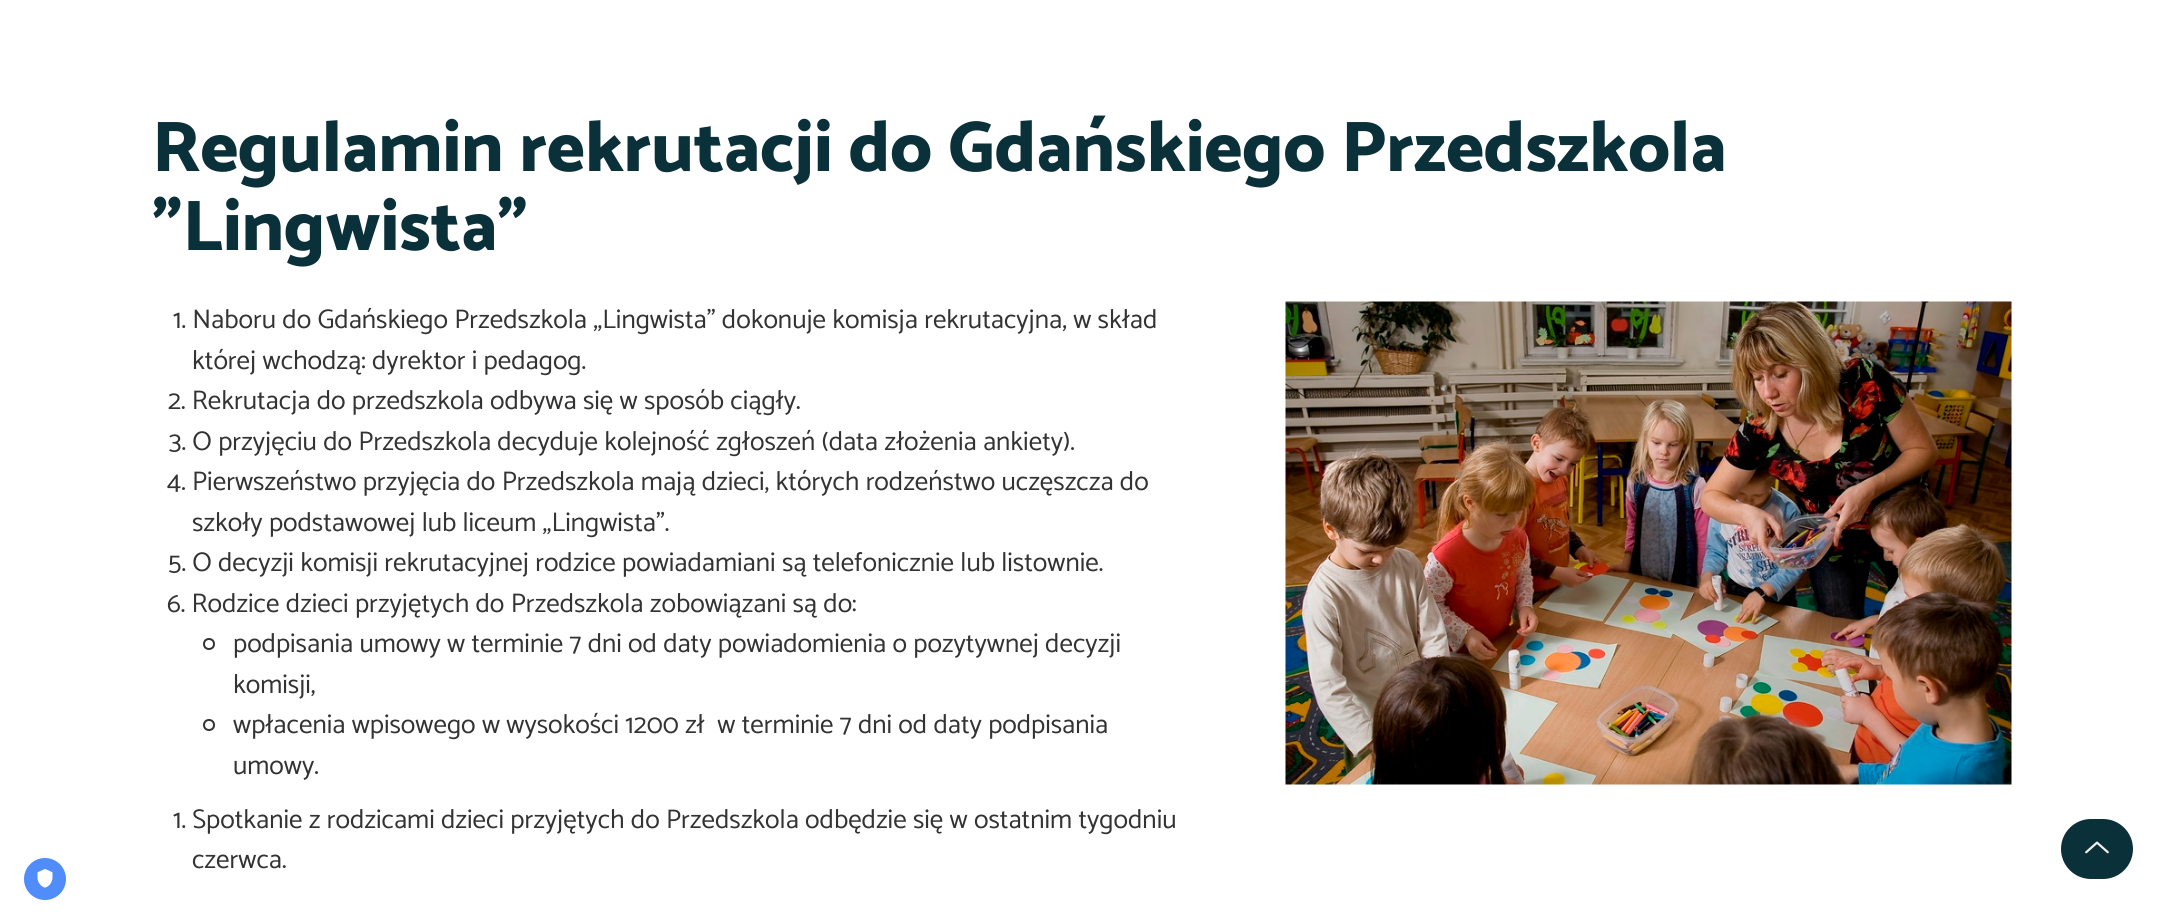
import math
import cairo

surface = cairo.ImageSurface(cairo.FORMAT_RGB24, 2163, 923)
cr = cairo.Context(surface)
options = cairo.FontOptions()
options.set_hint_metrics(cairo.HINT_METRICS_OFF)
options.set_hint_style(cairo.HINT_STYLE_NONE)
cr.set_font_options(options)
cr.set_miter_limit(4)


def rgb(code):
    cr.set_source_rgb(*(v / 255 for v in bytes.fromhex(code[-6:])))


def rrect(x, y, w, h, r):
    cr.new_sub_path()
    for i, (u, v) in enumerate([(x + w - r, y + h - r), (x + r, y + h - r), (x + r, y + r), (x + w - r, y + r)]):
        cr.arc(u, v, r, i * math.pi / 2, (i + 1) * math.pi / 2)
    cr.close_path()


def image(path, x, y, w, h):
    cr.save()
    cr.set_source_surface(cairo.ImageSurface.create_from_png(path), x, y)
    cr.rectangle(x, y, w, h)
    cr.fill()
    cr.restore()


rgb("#ffffff")
cr.paint()
rgb("#508dfa")
cr.arc(45, 879, 21, 0, 2 * math.pi)
cr.fill()
image("img/1.png", 37, 869, 16, 19)
cr.arc(209, 644, 5, 0, 2 * math.pi)
rgb("#333333")
cr.stroke()
cr.arc(209, 725, 5, 0, 2 * math.pi)
cr.stroke()
image("img/2.png", 1285, 301, 727, 484)
rgb("#0a303a")
rrect(2061, 819, 72, 60, 30)
cr.fill()
image("img/3.png", 2085, 841, 24, 13)
cr.select_font_face("Catamaran ExtraBold")
cr.set_font_size(72)
cr.move_to(152, 171)
cr.show_text("Regulamin rekrutacji do Gdańskiego Przedszkola")
cr.move_to(152, 250)
cr.show_text("\"Lingwista\"")
cr.select_font_face("Catamaran")
cr.set_font_size(27)
rgb("#333333")
for x, y, s in [
    (173, 328, "1. Naboru do Gdańskiego Przedszkola „Lingwista” dokonuje komisja rekrutacyjna, w skład"),
    (192, 369, "której wchodzą: dyrektor i pedagog."),
    (168, 409, "2. Rekrutacja do przedszkola odbywa się w sposób ciągły."),
    (169, 450, "3. O przyjęciu do Przedszkola decyduje kolejność zgłoszeń (data złożenia ankiety)."),
    (167, 490, "4. Pierwszeństwo przyjęcia do Przedszkola mają dzieci, których rodzeństwo uczęszcza do"),
    (192, 531, "szkoły podstawowej lub liceum „Lingwista”."),
    (168, 571, "5. O decyzji komisji rekrutacyjnej rodzice powiadamiani są telefonicznie lub listownie."),
    (167, 612, "6. Rodzice dzieci przyjętych do Przedszkola zobowiązani są do:"),
    (233, 652, "podpisania umowy w terminie 7 dni od daty powiadomienia o pozytywnej decyzji"),
    (233, 693, "komisji,"),
    (233, 733, "wpłacenia wpisowego w wysokości 1200 zł  w terminie 7 dni od daty podpisania"),
    (233, 774, "umowy."),
    (173, 828, "1. Spotkanie z rodzicami dzieci przyjętych do Przedszkola odbędzie się w ostatnim tygodniu"),
    (192, 868, "czerwca."),
]:
    cr.move_to(x, y)
    cr.show_text(s)
surface.write_to_png("page.png")
